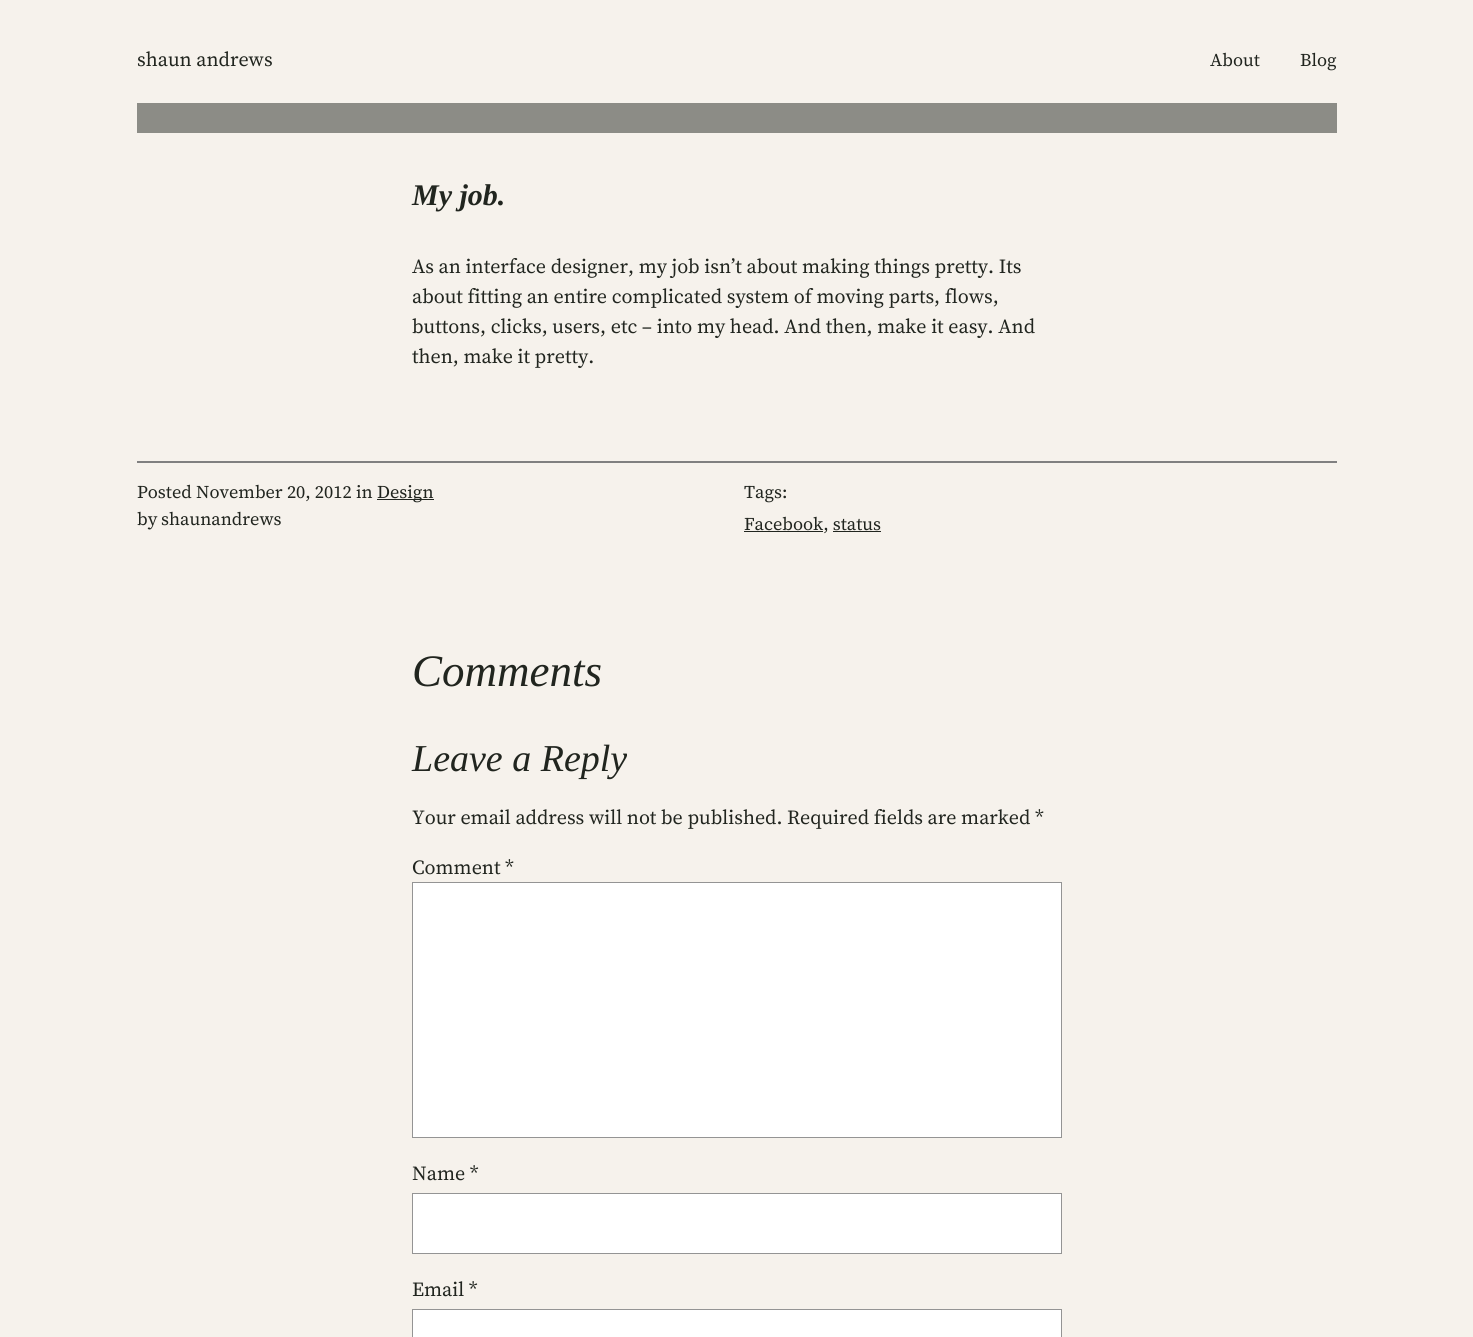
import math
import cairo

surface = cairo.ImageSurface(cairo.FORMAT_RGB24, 1473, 1337)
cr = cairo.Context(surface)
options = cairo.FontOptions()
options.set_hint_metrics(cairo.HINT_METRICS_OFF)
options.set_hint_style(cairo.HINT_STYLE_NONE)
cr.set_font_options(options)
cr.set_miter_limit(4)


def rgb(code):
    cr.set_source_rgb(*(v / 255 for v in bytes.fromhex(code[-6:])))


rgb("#f6f2ec")
cr.paint()
for x, y, w, h, color in [
    (137, 103, 1200, 30, "#8c8c86"),
    (137, 461, 1200, 2, "#808080"),
    (377, 499, 57, 1, "#21251f"),
    (744, 531, 79, 1, "#21251f"),
    (833, 531, 48, 1, "#21251f"),
]:
    rgb(color)
    cr.rectangle(x, y, w, h)
    cr.fill()
rgb("#ffffff")
cr.rectangle(412.5, 882.5, 649, 255)
cr.fill_preserve()
rgb("#949494")
cr.set_line_width(1)
cr.stroke()
rgb("#ffffff")
cr.rectangle(412.5, 1193.5, 649, 60)
cr.fill_preserve()
rgb("#949494")
cr.stroke()
rgb("#ffffff")
cr.rectangle(412.5, 1309.5, 649, 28)
cr.fill_preserve()
rgb("#949494")
cr.stroke()
cr.select_font_face("Source Serif 4")
cr.set_font_size(20)
rgb("#21251f")
cr.move_to(137, 66)
cr.show_text("shaun andrews")
cr.select_font_face("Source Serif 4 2")
cr.set_font_size(18)
cr.move_to(1210, 66)
cr.show_text("About")
cr.move_to(1300, 66)
cr.show_text("Blog")
cr.select_font_face("Liberation Serif", cairo.FONT_SLANT_ITALIC, cairo.FONT_WEIGHT_BOLD)
cr.set_font_size(30)
cr.move_to(412, 205)
cr.show_text("My job.")
cr.select_font_face("Source Serif 4")
cr.set_font_size(20)
for x, y, s in [
    (412, 273, "As an interface designer, my job isn’t about making things pretty. Its"),
    (412, 303, "about fitting an entire complicated system of moving parts, flows,"),
    (412, 333, "buttons, clicks, users, etc – into my head. And then, make it easy. And"),
    (412, 363, "then, make it pretty."),
]:
    cr.move_to(x, y)
    cr.show_text(s)
cr.select_font_face("Source Serif 4 2")
cr.set_font_size(18)
for x, y, s in [
    (137, 498, "Posted"),
    (196, 498, "November 20, 2012"),
    (356, 498, "in"),
    (377, 498, "Design"),
    (137, 525, "by"),
    (161, 525, "shaunandrews"),
    (744, 498, "Tags:"),
    (744, 530, "Facebook, status"),
]:
    cr.move_to(x, y)
    cr.show_text(s)
cr.select_font_face("Liberation Serif", cairo.FONT_SLANT_ITALIC)
cr.set_font_size(45)
cr.move_to(412, 686)
cr.show_text("Comments")
cr.set_font_size(38)
cr.move_to(412, 771)
cr.show_text("Leave a Reply")
cr.select_font_face("Source Serif 4")
cr.set_font_size(20)
for x, y, s in [
    (412, 824, "Your email address will not be published. Required fields are marked *"),
    (412, 874, "Comment *"),
    (412, 1180, "Name *"),
    (412, 1296, "Email *"),
]:
    cr.move_to(x, y)
    cr.show_text(s)
surface.write_to_png("page.png")
